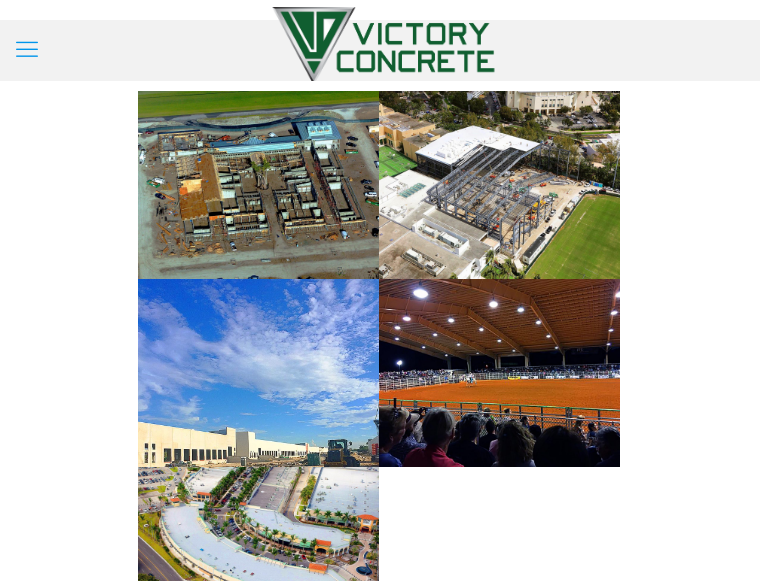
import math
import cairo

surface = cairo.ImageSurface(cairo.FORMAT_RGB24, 760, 581)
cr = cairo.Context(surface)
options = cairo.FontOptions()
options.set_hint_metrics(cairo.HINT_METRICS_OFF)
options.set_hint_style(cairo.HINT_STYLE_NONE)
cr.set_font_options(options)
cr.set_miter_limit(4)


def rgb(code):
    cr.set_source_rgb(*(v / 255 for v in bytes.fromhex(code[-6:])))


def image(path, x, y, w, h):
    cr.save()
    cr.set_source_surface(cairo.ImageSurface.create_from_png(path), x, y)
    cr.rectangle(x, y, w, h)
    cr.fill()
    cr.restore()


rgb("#ffffff")
cr.paint()
rgb("#f2f2f2")
cr.rectangle(0, 20, 760, 61)
cr.fill()
image("img/1.png", 16, 41, 22, 16)
image("img/2.png", 272, 7, 223, 74)
image("img/3.png", 138, 91, 241, 188)
image("img/4.png", 379, 91, 241, 188)
image("img/5.png", 138, 279, 241, 188)
image("img/6.png", 379, 279, 241, 188)
image("img/7.png", 138, 467, 241, 114)
surface.write_to_png("page.png")
